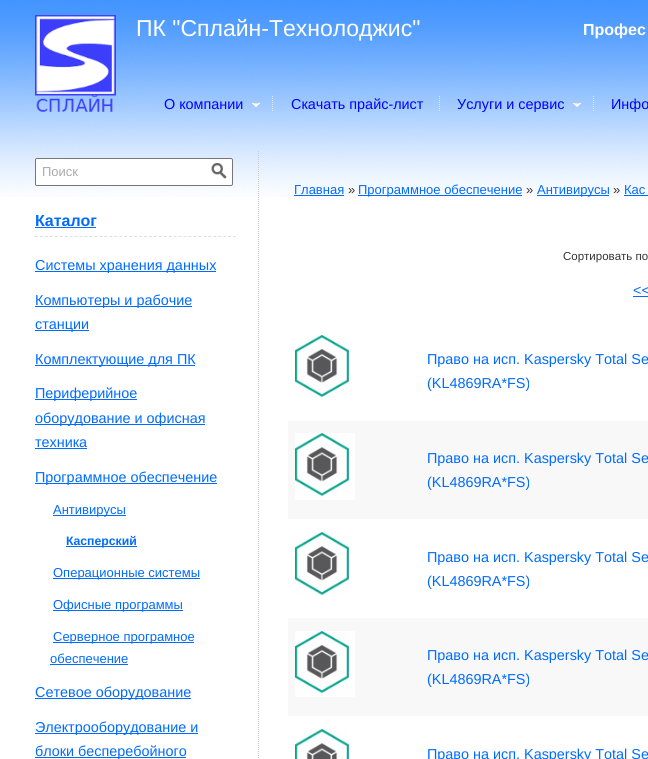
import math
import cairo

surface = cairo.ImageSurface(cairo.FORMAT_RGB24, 648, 759)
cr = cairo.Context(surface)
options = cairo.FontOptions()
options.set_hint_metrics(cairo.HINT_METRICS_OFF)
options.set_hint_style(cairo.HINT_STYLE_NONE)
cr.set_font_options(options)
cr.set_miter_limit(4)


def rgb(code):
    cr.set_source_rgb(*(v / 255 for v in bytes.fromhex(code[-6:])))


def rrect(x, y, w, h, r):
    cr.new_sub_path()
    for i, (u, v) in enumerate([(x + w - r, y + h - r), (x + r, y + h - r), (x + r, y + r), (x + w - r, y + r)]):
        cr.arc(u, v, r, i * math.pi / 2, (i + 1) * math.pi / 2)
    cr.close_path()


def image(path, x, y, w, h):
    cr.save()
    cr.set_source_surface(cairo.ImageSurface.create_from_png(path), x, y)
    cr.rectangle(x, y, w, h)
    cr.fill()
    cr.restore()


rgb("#ffffff")
cr.paint()
image("img/1.png", 0, 0, 648, 197)
image("img/2.png", 35, 15, 81, 97)
image("img/3.png", 252, 103, 8, 4)
cr.new_path()
cr.move_to(272.5, 96)
cr.line_to(272.5, 112)
rgb("#e0e8ef")
cr.set_line_width(1)
cr.set_dash([1, 1])
cr.stroke()
cr.new_path()
cr.move_to(439.5, 96)
cr.line_to(439.5, 112)
cr.stroke()
image("img/4.png", 573, 103, 8, 4)
cr.new_path()
cr.move_to(593.5, 96)
cr.line_to(593.5, 112)
cr.stroke()
rgb("#ffffff")
rrect(35.5, 158.5, 197, 27, 1.5)
cr.fill_preserve()
rgb("#767676")
cr.set_dash([])
cr.stroke()
image("img/5.png", 211, 163, 16, 16)
cr.new_path()
cr.move_to(35, 236.5)
cr.line_to(236, 236.5)
rgb("#dfdfdf")
cr.set_dash([3, 1.95])
cr.stroke()
for x, y, w, h, color in [
    (35, 227, 61, 1, "#006bff"),
    (35, 271, 181, 1, "#006bff"),
    (35, 306, 157, 1, "#006bff"),
    (35, 330, 54, 1, "#006bff"),
    (35, 365, 160, 1, "#006bff"),
    (35, 399, 102, 1, "#006bff"),
    (35, 424, 170, 1, "#006bff"),
    (35, 448, 52, 1, "#006bff"),
    (35, 483, 182, 1, "#006bff"),
    (53, 515, 73, 1, "#006bff"),
    (66, 546, 71, 1, "#006bff"),
    (53, 578, 147, 1, "#006bff"),
    (53, 610, 130, 1, "#006bff"),
    (53, 642, 141, 1, "#006bff"),
    (50, 664, 78, 1, "#006bff"),
    (35, 698, 156, 1, "#006bff"),
    (35, 733, 163, 1, "#006bff"),
    (35, 757, 151, 1, "#006bff"),
]:
    rgb(color)
    cr.rectangle(x, y, w, h)
    cr.fill()
cr.new_path()
cr.move_to(258.5, 151)
cr.line_to(258.5, 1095)
rgb("#cccccc")
cr.set_dash([1, 1])
cr.stroke()
for x, y, w, h, color in [
    (294, 195, 50, 1, "#006bff"),
    (358, 195, 164, 1, "#006bff"),
    (537, 195, 72, 1, "#006bff"),
    (624, 195, 24, 1, "#006bff"),
    (633, 296, 15, 1, "#006bff"),
]:
    rgb(color)
    cr.rectangle(x, y, w, h)
    cr.fill()
image("img/6.png", 295, 335, 55, 63)
rgb("#f8f8f8")
cr.rectangle(288, 421, 360, 98)
cr.fill()
image("img/7.png", 295, 433, 60, 67)
image("img/8.png", 295, 532, 55, 64)
cr.rectangle(288, 618, 360, 98)
cr.fill()
image("img/9.png", 295, 631, 60, 66)
image("img/10.png", 295, 729, 55, 30)
cr.select_font_face("Liberation Sans")
cr.set_font_size(23)
rgb("#ffffff")
cr.move_to(136, 36)
cr.show_text("ПК \"Сплайн-Технолоджис\"")
cr.select_font_face("Liberation Sans", cairo.FONT_SLANT_NORMAL, cairo.FONT_WEIGHT_BOLD)
cr.set_font_size(16)
cr.move_to(583, 35)
cr.show_text("Профес")
cr.select_font_face("Liberation Sans")
cr.set_font_size(14.4)
rgb("#0000ff")
for x, y, s in [
    (164, 109, "О компании"),
    (291, 109, "Скачать прайс-лист"),
    (457, 109, "Услуги и сервис"),
    (611, 109, "Инфо"),
]:
    cr.move_to(x, y)
    cr.show_text(s)
cr.set_font_size(13)
rgb("#aaaaaa")
cr.move_to(42, 176)
cr.show_text("Поиск")
cr.select_font_face("Liberation Sans", cairo.FONT_SLANT_NORMAL, cairo.FONT_WEIGHT_BOLD)
cr.set_font_size(16)
rgb("#006bff")
cr.move_to(35, 226)
cr.show_text("Каталог")
cr.select_font_face("Liberation Sans")
cr.set_font_size(14.4)
for x, y, s in [
    (35, 270, "Системы хранения данных"),
    (35, 305, "Компьютеры и рабочие"),
    (35, 329, "станции"),
    (35, 364, "Комплектующие для ПК"),
    (35, 398, "Периферийное"),
    (35, 423, "оборудование и офисная"),
    (35, 447, "техника"),
    (35, 482, "Программное обеспечение"),
]:
    cr.move_to(x, y)
    cr.show_text(s)
cr.set_font_size(13)
cr.move_to(53, 514)
cr.show_text("Антивирусы")
cr.select_font_face("Liberation Sans", cairo.FONT_SLANT_NORMAL, cairo.FONT_WEIGHT_BOLD)
cr.set_font_size(12.25)
cr.move_to(66, 545)
cr.show_text("Касперский")
cr.select_font_face("Liberation Sans")
cr.set_font_size(13)
for x, y, s in [
    (53, 577, "Операционные системы"),
    (53, 609, "Офисные программы"),
    (53, 641, "Серверное програмное"),
    (50, 663, "обеспечение"),
]:
    cr.move_to(x, y)
    cr.show_text(s)
cr.set_font_size(14.4)
for x, y, s in [
    (35, 697, "Сетевое оборудование"),
    (35, 732, "Электрооборудование и"),
    (35, 756, "блоки бесперебойного"),
]:
    cr.move_to(x, y)
    cr.show_text(s)
cr.set_font_size(13)
cr.move_to(294, 194)
cr.show_text("Главная")
rgb("#333333")
cr.move_to(348, 194)
cr.show_text("»")
rgb("#006bff")
cr.move_to(358, 194)
cr.show_text("Программное обеспечение")
rgb("#333333")
cr.move_to(526, 194)
cr.show_text("»")
rgb("#006bff")
cr.move_to(537, 194)
cr.show_text("Антивирусы")
rgb("#333333")
cr.move_to(613, 194)
cr.show_text("»")
rgb("#006bff")
cr.move_to(624, 194)
cr.show_text("Кас")
cr.set_font_size(11.5)
rgb("#333333")
cr.move_to(563, 260)
cr.show_text("Сортировать по")
cr.set_font_size(14.4)
rgb("#006bff")
for x, y, s in [
    (633, 295, "<<"),
    (427, 364, "Право на исп. Kaspersky Total Se"),
    (427, 388, "(KL4869RA*FS)"),
    (427, 463, "Право на исп. Kaspersky Total Se"),
    (427, 487, "(KL4869RA*FS)"),
    (427, 562, "Право на исп. Kaspersky Total Se"),
    (427, 586, "(KL4869RA*FS)"),
    (427, 660, "Право на исп. Kaspersky Total Se"),
    (427, 684, "(KL4869RA*FS)"),
    (427, 759, "Право на исп. Kaspersky Total Se"),
]:
    cr.move_to(x, y)
    cr.show_text(s)
surface.write_to_png("page.png")
